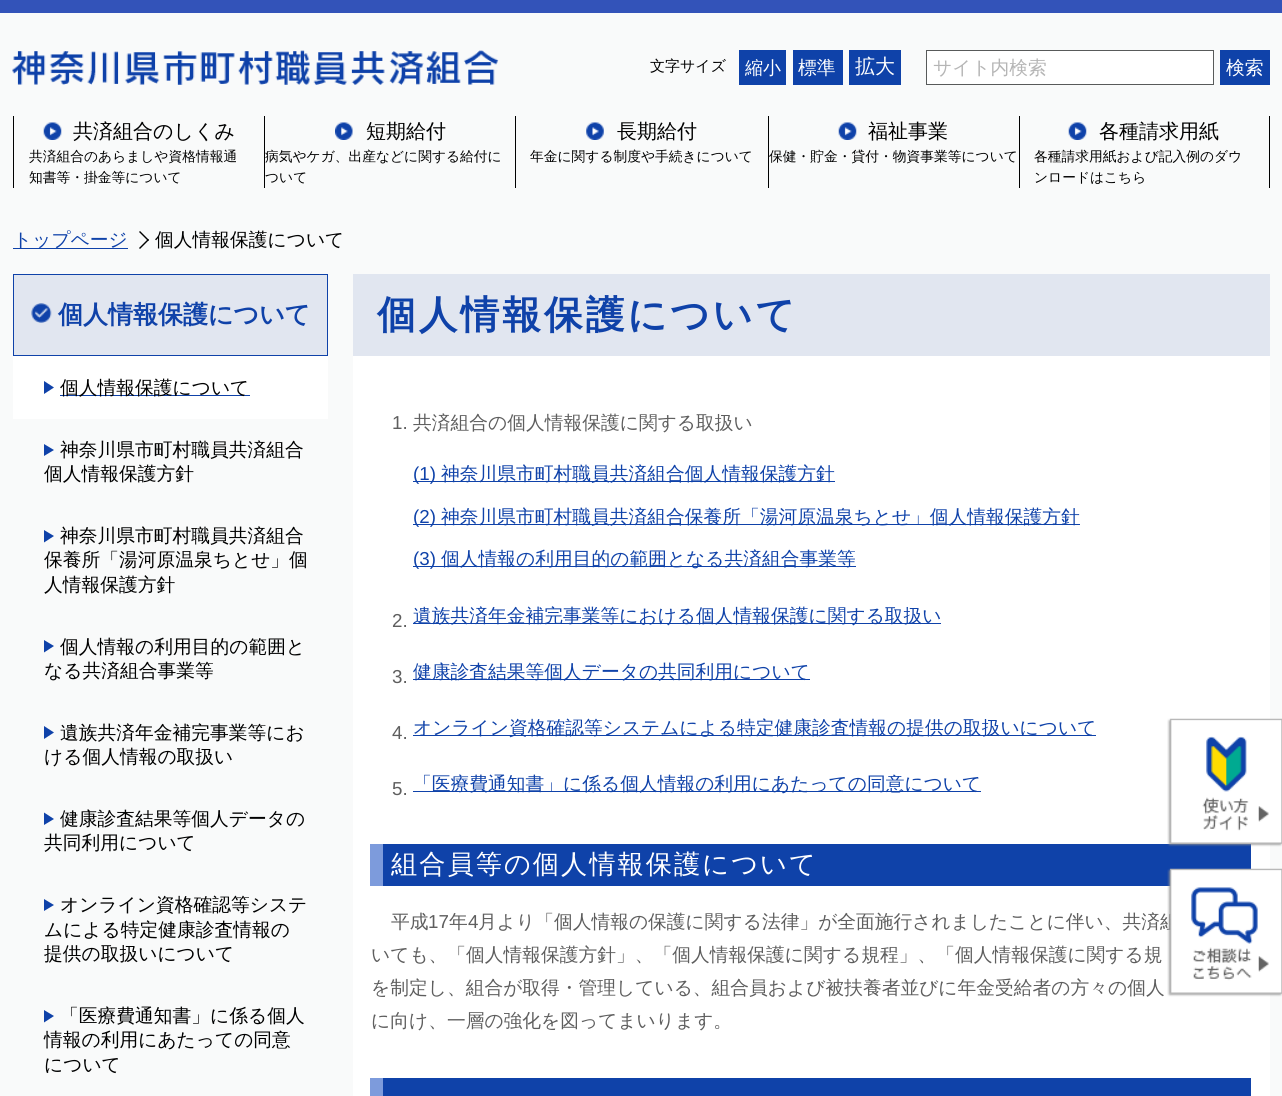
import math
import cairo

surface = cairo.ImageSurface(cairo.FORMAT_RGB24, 1282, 1096)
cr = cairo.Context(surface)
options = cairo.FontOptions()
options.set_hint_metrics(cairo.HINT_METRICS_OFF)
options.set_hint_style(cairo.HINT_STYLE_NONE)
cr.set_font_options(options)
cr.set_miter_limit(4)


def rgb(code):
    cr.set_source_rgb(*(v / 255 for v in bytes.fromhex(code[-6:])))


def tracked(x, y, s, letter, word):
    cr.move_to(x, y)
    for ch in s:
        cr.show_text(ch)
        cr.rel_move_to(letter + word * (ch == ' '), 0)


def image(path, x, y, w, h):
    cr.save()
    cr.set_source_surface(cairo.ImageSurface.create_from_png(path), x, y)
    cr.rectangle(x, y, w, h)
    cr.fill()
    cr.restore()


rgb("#f9fafa")
cr.paint()
rgb("#3353b9")
cr.rectangle(0, 0, 1282, 13)
cr.fill()
image("img/1.png", 12, 50, 487, 35)
for x, y, w, h, color in [
    (739, 50, 47, 35, "#0f42a9"),
    (793, 50, 50, 35, "#0f42a9"),
    (849, 50, 52, 35, "#0f42a9"),
]:
    rgb(color)
    cr.rectangle(x, y, w, h)
    cr.fill()
rgb("#ffffff")
cr.rectangle(926.5, 50.5, 287, 34)
cr.fill_preserve()
rgb("#585a5a")
cr.set_line_width(1)
cr.stroke()
rgb("#0f42a9")
cr.rectangle(1220, 50, 50, 35)
cr.fill()
rgb("#000000")
cr.rectangle(13, 116, 1, 72)
cr.fill()
image("img/2.png", 43, 122, 19, 18)
cr.rectangle(264, 116, 1, 72)
cr.fill()
image("img/3.png", 335, 122, 18, 18)
cr.rectangle(515, 116, 1, 72)
cr.fill()
image("img/4.png", 586, 122, 18, 18)
cr.rectangle(768, 116, 1, 72)
cr.fill()
image("img/5.png", 838, 122, 19, 18)
cr.rectangle(1269, 116, 1, 72)
cr.fill()
cr.rectangle(1019, 116, 1, 72)
cr.fill()
image("img/5.png", 1068, 122, 19, 18)
rgb("#0f42a9")
cr.rectangle(13, 248, 115, 1)
cr.fill()
rgb("#000000")
cr.new_path()
cr.move_to(140, 231)
cr.line_to(149, 240)
cr.line_to(148, 241)
cr.line_to(139, 232)
cr.close_path()
cr.fill()
cr.new_path()
cr.move_to(148, 239)
cr.line_to(149, 240)
cr.line_to(140, 249)
cr.line_to(139, 248)
cr.close_path()
cr.fill()
rgb("#e1e6f0")
cr.rectangle(13.5, 274.5, 314, 81)
cr.fill_preserve()
rgb("#0f42a9")
cr.stroke()
image("img/6.png", 31, 303, 21, 20)
rgb("#ffffff")
cr.rectangle(13, 356, 315, 63)
cr.fill()
rgb("#0f42a9")
cr.new_path()
cr.move_to(44, 394)
cr.line_to(44, 381)
cr.line_to(54, 387.5)
cr.close_path()
cr.fill()
cr.rectangle(60, 395, 190, 1)
cr.fill()
cr.new_path()
cr.move_to(44, 456)
cr.line_to(44, 444)
cr.line_to(54, 450)
cr.close_path()
cr.fill()
cr.new_path()
cr.move_to(44, 542.5)
cr.line_to(44, 530)
cr.line_to(54, 536)
cr.close_path()
cr.fill()
cr.new_path()
cr.move_to(44, 652.5)
cr.line_to(44, 640)
cr.line_to(54, 646)
cr.close_path()
cr.fill()
cr.new_path()
cr.move_to(44, 739)
cr.line_to(44, 726)
cr.line_to(54, 732.5)
cr.close_path()
cr.fill()
cr.new_path()
cr.move_to(44, 825)
cr.line_to(44, 812.5)
cr.line_to(54, 819)
cr.close_path()
cr.fill()
cr.new_path()
cr.move_to(44, 911)
cr.line_to(44, 899)
cr.line_to(54, 905)
cr.close_path()
cr.fill()
cr.new_path()
cr.move_to(44, 1022.5)
cr.line_to(44, 1010)
cr.line_to(54, 1016)
cr.close_path()
cr.fill()
for x, y, w, h, color in [
    (353, 356, 917, 740, "#ffffff"),
    (353, 274, 917, 82, "#e1e6f0"),
    (413, 481, 422, 1, "#0f42a9"),
    (413, 524, 667, 1, "#0f42a9"),
    (413, 566, 443, 1, "#0f42a9"),
    (413, 623, 528, 1, "#0f42a9"),
    (413, 679, 397, 1, "#0f42a9"),
    (413, 735, 683, 1, "#0f42a9"),
    (413, 791, 568, 1, "#0f42a9"),
    (383, 844, 868, 42, "#0f42a9"),
    (370, 844, 13, 42, "#7d9bdc"),
    (383, 1078, 868, 18, "#0f42a9"),
    (370, 1078, 13, 18, "#7d9bdc"),
]:
    rgb(color)
    cr.rectangle(x, y, w, h)
    cr.fill()
image("img/7.png", 1167, 718, 115, 129)
cr.select_font_face("WenQuanYi Zen Hei Medium")
cr.set_font_size(15)
rgb("#000000")
cr.move_to(650, 71)
cr.show_text("文字サイズ")
cr.set_font_size(18)
rgb("#ffffff")
cr.move_to(745, 74)
cr.show_text("縮小")
cr.set_font_size(18.75)
cr.move_to(798, 74)
cr.show_text("標準")
cr.set_font_size(20)
cr.move_to(855, 73)
cr.show_text("拡大")
cr.set_font_size(18.75)
rgb("#b5b5b5")
cr.move_to(933, 74)
cr.show_text("サイト内検索")
rgb("#ffffff")
cr.move_to(1226, 74)
cr.show_text("検索")
cr.set_font_size(20)
rgb("#000000")
cr.move_to(73, 138)
cr.show_text("共済組合のしくみ")
cr.set_font_size(13.75)
cr.move_to(29, 161)
cr.show_text("共済組合のあらましや資格情報通")
cr.move_to(29, 182)
cr.show_text("知書等・掛金等について")
cr.set_font_size(20)
cr.move_to(366, 138)
cr.show_text("短期給付")
cr.set_font_size(13.75)
cr.move_to(265, 161)
cr.show_text("病気やケガ、出産などに関する給付に")
cr.move_to(265, 182)
cr.show_text("ついて")
cr.set_font_size(20)
cr.move_to(617, 138)
cr.show_text("長期給付")
cr.set_font_size(13.75)
cr.move_to(530, 161)
cr.show_text("年金に関する制度や手続きについて")
cr.set_font_size(20)
cr.move_to(868, 138)
cr.show_text("福祉事業")
cr.set_font_size(13.75)
cr.move_to(769, 161)
cr.show_text("保健・貯金・貸付・物資事業等について")
cr.set_font_size(20)
cr.move_to(1099, 138)
cr.show_text("各種請求用紙")
cr.set_font_size(13.75)
cr.move_to(1034, 161)
cr.show_text("各種請求用紙および記入例のダウ")
cr.move_to(1034, 182)
cr.show_text("ンロードはこちら")
cr.set_font_size(18.75)
rgb("#0f42a9")
cr.move_to(13, 246)
cr.show_text("トップページ")
rgb("#000000")
cr.move_to(155, 246)
cr.show_text("個人情報保護について")
cr.select_font_face("WenQuanYi Zen Hei", cairo.FONT_SLANT_NORMAL, cairo.FONT_WEIGHT_BOLD)
cr.set_font_size(25)
rgb("#0f42a9")
cr.move_to(58, 323)
cr.show_text("個人情報保護について")
cr.select_font_face("WenQuanYi Zen Hei Medium")
cr.set_font_size(18.75)
rgb("#000000")
for x, y, s in [
    (60, 394, "個人情報保護について"),
    (60, 456, "神奈川県市町村職員共済組合"),
    (44, 480, "個人情報保護方針"),
    (60, 542, "神奈川県市町村職員共済組合"),
    (44, 566, "保養所「湯河原温泉ちとせ」個"),
    (44, 591, "人情報保護方針"),
    (60, 653, "個人情報の利用目的の範囲と"),
    (44, 677, "なる共済組合事業等"),
    (60, 739, "遺族共済年金補完事業等にお"),
    (44, 763, "ける個人情報の取扱い"),
    (60, 825, "健康診査結果等個人データの"),
    (44, 849, "共同利用について"),
    (60, 911, "オンライン資格確認等システ"),
    (44, 936, "ムによる特定健康診査情報の"),
    (44, 960, "提供の取扱いについて"),
    (60, 1022, "「医療費通知書」に係る個人"),
    (44, 1046, "情報の利用にあたっての同意"),
    (44, 1071, "について"),
]:
    cr.move_to(x, y)
    cr.show_text(s)
cr.select_font_face("WenQuanYi Zen Hei", cairo.FONT_SLANT_NORMAL, cairo.FONT_WEIGHT_BOLD)
cr.set_font_size(38.75)
rgb("#0f42a9")
tracked(377, 328, "個人情報保護について", 3, 0)
cr.select_font_face("Liberation Sans")
cr.set_font_size(18.75)
rgb("#5e5e5e")
cr.move_to(392, 429)
cr.show_text("1.")
cr.select_font_face("WenQuanYi Zen Hei Medium")
cr.move_to(413, 429)
cr.show_text("共済組合の個人情報保護に関する取扱い")
cr.select_font_face("Liberation Sans")
rgb("#0f42a9")
cr.move_to(413, 480)
cr.show_text("(1)")
cr.select_font_face("WenQuanYi Zen Hei Medium")
cr.move_to(441, 480)
cr.show_text("神奈川県市町村職員共済組合個人情報保護方針")
cr.select_font_face("Liberation Sans")
cr.move_to(413, 523)
cr.show_text("(2)")
cr.select_font_face("WenQuanYi Zen Hei Medium")
cr.move_to(441, 523)
cr.show_text("神奈川県市町村職員共済組合保養所「湯河原温泉ちとせ」個人情報保護方針")
cr.select_font_face("Liberation Sans")
cr.move_to(413, 565)
cr.show_text("(3)")
cr.select_font_face("WenQuanYi Zen Hei Medium")
cr.move_to(441, 565)
cr.show_text("個人情報の利用目的の範囲となる共済組合事業等")
cr.select_font_face("Liberation Sans")
rgb("#5e5e5e")
cr.move_to(392, 627)
cr.show_text("2.")
cr.select_font_face("WenQuanYi Zen Hei Medium")
rgb("#0f42a9")
cr.move_to(413, 622)
cr.show_text("遺族共済年金補完事業等における個人情報保護に関する取扱い")
cr.select_font_face("Liberation Sans")
rgb("#5e5e5e")
cr.move_to(392, 683)
cr.show_text("3.")
cr.select_font_face("WenQuanYi Zen Hei Medium")
rgb("#0f42a9")
cr.move_to(413, 678)
cr.show_text("健康診査結果等個人データの共同利用について")
cr.select_font_face("Liberation Sans")
rgb("#5e5e5e")
cr.move_to(392, 739)
cr.show_text("4.")
cr.select_font_face("WenQuanYi Zen Hei Medium")
rgb("#0f42a9")
cr.move_to(413, 734)
cr.show_text("オンライン資格確認等システムによる特定健康診査情報の提供の取扱いについて")
cr.select_font_face("Liberation Sans")
rgb("#5e5e5e")
cr.move_to(392, 795)
cr.show_text("5.")
cr.select_font_face("WenQuanYi Zen Hei Medium")
rgb("#0f42a9")
cr.move_to(413, 790)
cr.show_text("「医療費通知書」に係る個人情報の利用にあたっての同意について")
cr.set_font_size(26.25)
rgb("#ffffff")
tracked(391, 873, "組合員等の個人情報保護について", 2, 0)
cr.set_font_size(18.75)
rgb("#5e5e5e")
cr.move_to(391, 928)
cr.show_text("平成")
cr.select_font_face("Liberation Sans")
cr.move_to(428, 928)
cr.show_text("17")
cr.select_font_face("WenQuanYi Zen Hei Medium")
cr.move_to(449, 928)
cr.show_text("年")
cr.select_font_face("Liberation Sans")
cr.move_to(468, 928)
cr.show_text("4")
cr.select_font_face("WenQuanYi Zen Hei Medium")
for x, y, s in [
    (478, 928, "月より「個人情報の保護に関する法律」が全面施行されましたことに伴い、共済組"),
    (371, 961, "いても、「個人情報保護方針」、「個人情報保護に関する規程」、「個人情報保護に関する規"),
    (371, 994, "を制定し、組合が取得・管理している、組合員および被扶養者並びに年金受給者の方々の個人"),
    (371, 1027, "に向け、一層の強化を図ってまいります。"),
]:
    cr.move_to(x, y)
    cr.show_text(s)
image("img/8.png", 1167, 868, 115, 129)
surface.write_to_png("page.png")
